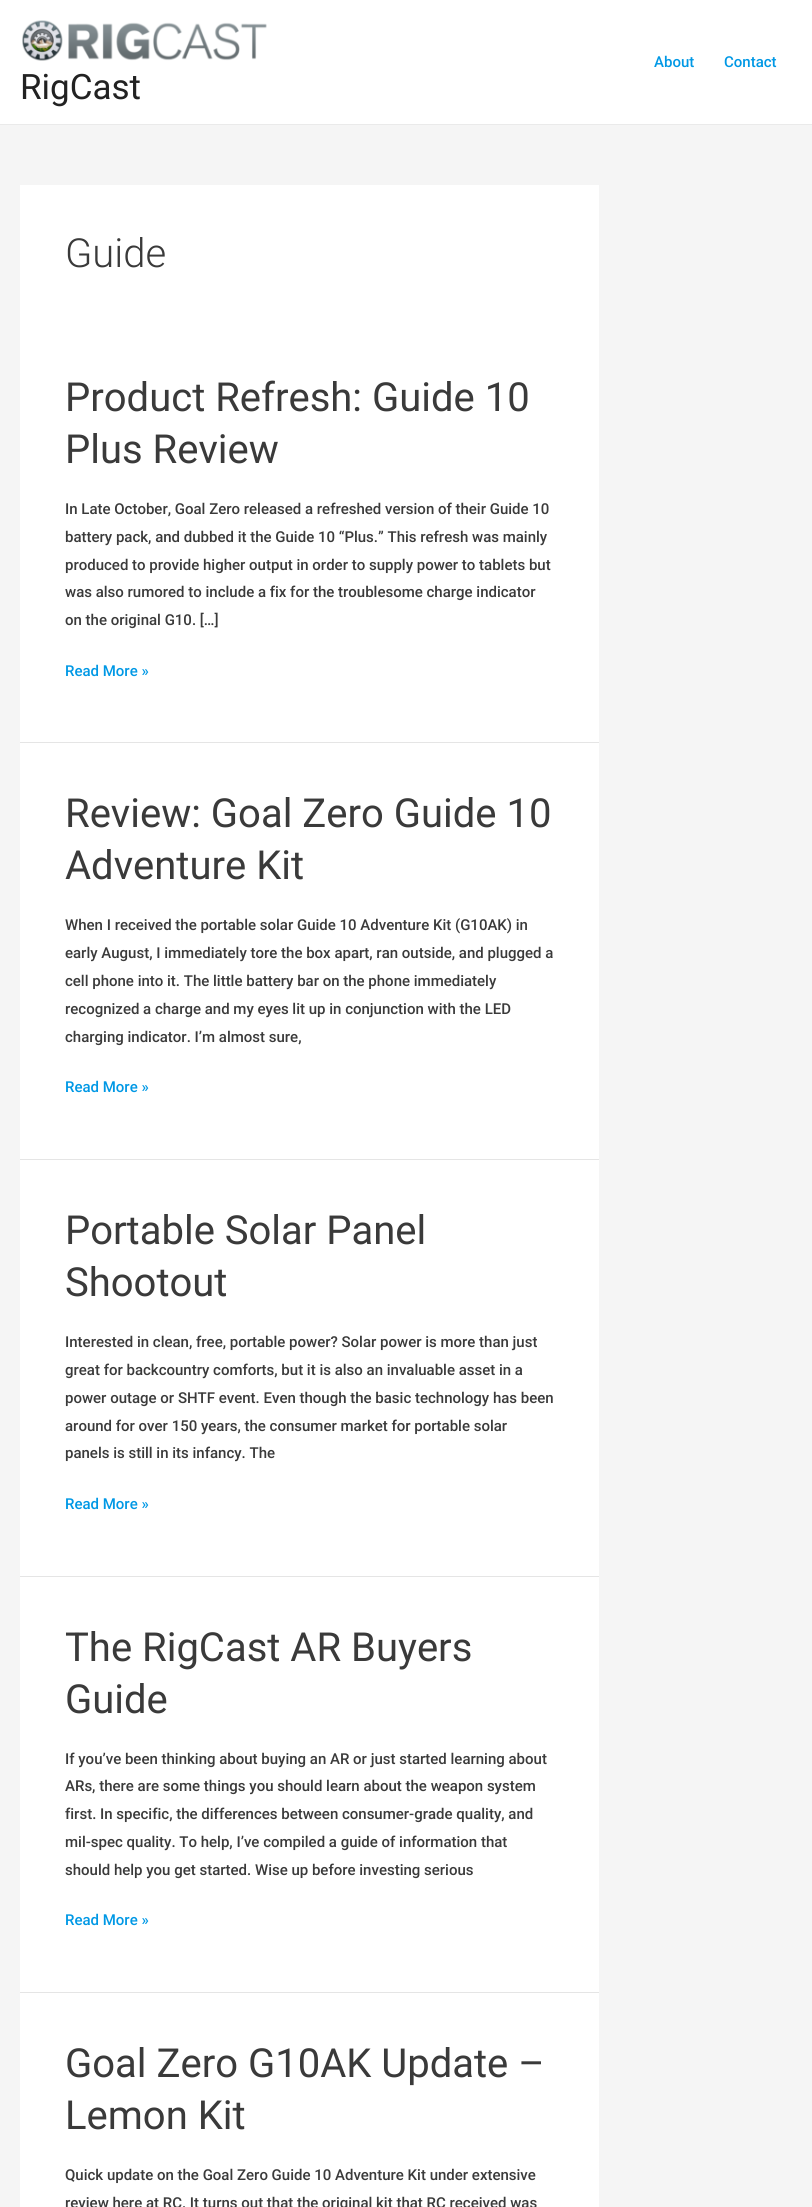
import math
import cairo

surface = cairo.ImageSurface(cairo.FORMAT_RGB24, 812, 2207)
cr = cairo.Context(surface)
options = cairo.FontOptions()
options.set_hint_metrics(cairo.HINT_METRICS_OFF)
options.set_hint_style(cairo.HINT_STYLE_NONE)
cr.set_font_options(options)
cr.set_miter_limit(4)


def rgb(code):
    cr.set_source_rgb(*(v / 255 for v in bytes.fromhex(code[-6:])))


def image(path, x, y, w, h):
    cr.save()
    cr.set_source_surface(cairo.ImageSurface.create_from_png(path), x, y)
    cr.rectangle(x, y, w, h)
    cr.fill()
    cr.restore()


rgb("#f5f5f5")
cr.paint()
rgb("#ffffff")
cr.rectangle(0, 0, 812, 124)
cr.fill()
rgb("#eaeaea")
cr.rectangle(0, 124, 812, 1)
cr.fill()
image("img/1.png", 22, 20, 245, 41)
for x, y, w, h, color in [
    (20, 185, 579, 557, "#ffffff"),
    (20, 742, 579, 1, "#e5e5e5"),
    (20, 743, 579, 416, "#ffffff"),
    (20, 1159, 579, 1, "#e5e5e5"),
    (20, 1160, 579, 416, "#ffffff"),
    (20, 1576, 579, 1, "#e5e5e5"),
    (20, 1577, 579, 415, "#ffffff"),
    (20, 1992, 579, 1, "#e5e5e5"),
    (20, 1993, 579, 214, "#ffffff"),
]:
    rgb(color)
    cr.rectangle(x, y, w, h)
    cr.fill()
cr.select_font_face("Roboto Medium")
cr.set_font_size(15)
rgb("#0098e5")
cr.move_to(654, 67)
cr.show_text("About")
cr.move_to(724, 67)
cr.show_text("Contact")
cr.select_font_face("Roboto")
cr.set_font_size(35)
rgb("#222222")
cr.move_to(20, 99)
cr.show_text("RigCast")
cr.select_font_face("Roboto Light")
cr.set_font_size(40)
rgb("#3a3a3a")
cr.move_to(65, 267)
cr.show_text("Guide")
cr.select_font_face("Roboto")
cr.move_to(65, 411)
cr.show_text("Product Refresh: Guide 10")
cr.move_to(65, 463)
cr.show_text("Plus Review")
cr.select_font_face("Roboto Medium")
cr.set_font_size(15)
for x, y, s in [
    (65, 514, "In Late October, Goal Zero released a refreshed version of their Guide 10"),
    (65, 542, "battery pack, and dubbed it the Guide 10 “Plus.” This refresh was mainly"),
    (65, 570, "produced to provide higher output in order to supply power to tablets but"),
    (65, 597, "was also rumored to include a fix for the troublesome charge indicator"),
    (65, 625, "on the original G10. […]"),
]:
    cr.move_to(x, y)
    cr.show_text(s)
rgb("#0098e5")
cr.move_to(65, 676)
cr.show_text("Read More »")
cr.select_font_face("Roboto")
cr.set_font_size(40)
rgb("#3a3a3a")
cr.move_to(65, 827)
cr.show_text("Review: Goal Zero Guide 10")
cr.move_to(65, 879)
cr.show_text("Adventure Kit")
cr.select_font_face("Roboto Medium")
cr.set_font_size(15)
for x, y, s in [
    (65, 930, "When I received the portable solar Guide 10 Adventure Kit (G10AK) in"),
    (65, 958, "early August, I immediately tore the box apart, ran outside, and plugged a"),
    (65, 986, "cell phone into it. The little battery bar on the phone immediately"),
    (65, 1014, "recognized a charge and my eyes lit up in conjunction with the LED"),
    (65, 1042, "charging indicator. I’m almost sure,"),
]:
    cr.move_to(x, y)
    cr.show_text(s)
rgb("#0098e5")
cr.move_to(65, 1092)
cr.show_text("Read More »")
cr.select_font_face("Roboto")
cr.set_font_size(40)
rgb("#3a3a3a")
cr.move_to(65, 1244)
cr.show_text("Portable Solar Panel")
cr.move_to(65, 1296)
cr.show_text("Shootout")
cr.select_font_face("Roboto Medium")
cr.set_font_size(15)
for x, y, s in [
    (65, 1347, "Interested in clean, free, portable power? Solar power is more than just"),
    (65, 1375, "great for backcountry comforts, but it is also an invaluable asset in a"),
    (65, 1403, "power outage or SHTF event. Even though the basic technology has been"),
    (65, 1431, "around for over 150 years, the consumer market for portable solar"),
    (65, 1458, "panels is still in its infancy. The"),
]:
    cr.move_to(x, y)
    cr.show_text(s)
rgb("#0098e5")
cr.move_to(65, 1509)
cr.show_text("Read More »")
cr.select_font_face("Roboto")
cr.set_font_size(40)
rgb("#3a3a3a")
cr.move_to(65, 1661)
cr.show_text("The RigCast AR Buyers")
cr.move_to(65, 1713)
cr.show_text("Guide")
cr.select_font_face("Roboto Medium")
cr.set_font_size(15)
for x, y, s in [
    (65, 1764, "If you’ve been thinking about buying an AR or just started learning about"),
    (65, 1791, "ARs, there are some things you should learn about the weapon system"),
    (65, 1819, "first. In specific, the differences between consumer-grade quality, and"),
    (65, 1847, "mil-spec quality. To help, I’ve compiled a guide of information that"),
    (65, 1875, "should help you get started. Wise up before investing serious"),
]:
    cr.move_to(x, y)
    cr.show_text(s)
rgb("#0098e5")
cr.move_to(65, 1925)
cr.show_text("Read More »")
cr.select_font_face("Roboto")
cr.set_font_size(40)
rgb("#3a3a3a")
cr.move_to(65, 2077)
cr.show_text("Goal Zero G10AK Update –")
cr.move_to(65, 2129)
cr.show_text("Lemon Kit")
cr.select_font_face("Roboto Medium")
cr.set_font_size(15)
cr.move_to(65, 2180)
cr.show_text("Quick update on the Goal Zero Guide 10 Adventure Kit under extensive")
cr.move_to(65, 2208)
cr.show_text("review here at RC. It turns out that the original kit that RC received was")
surface.write_to_png("page.png")
